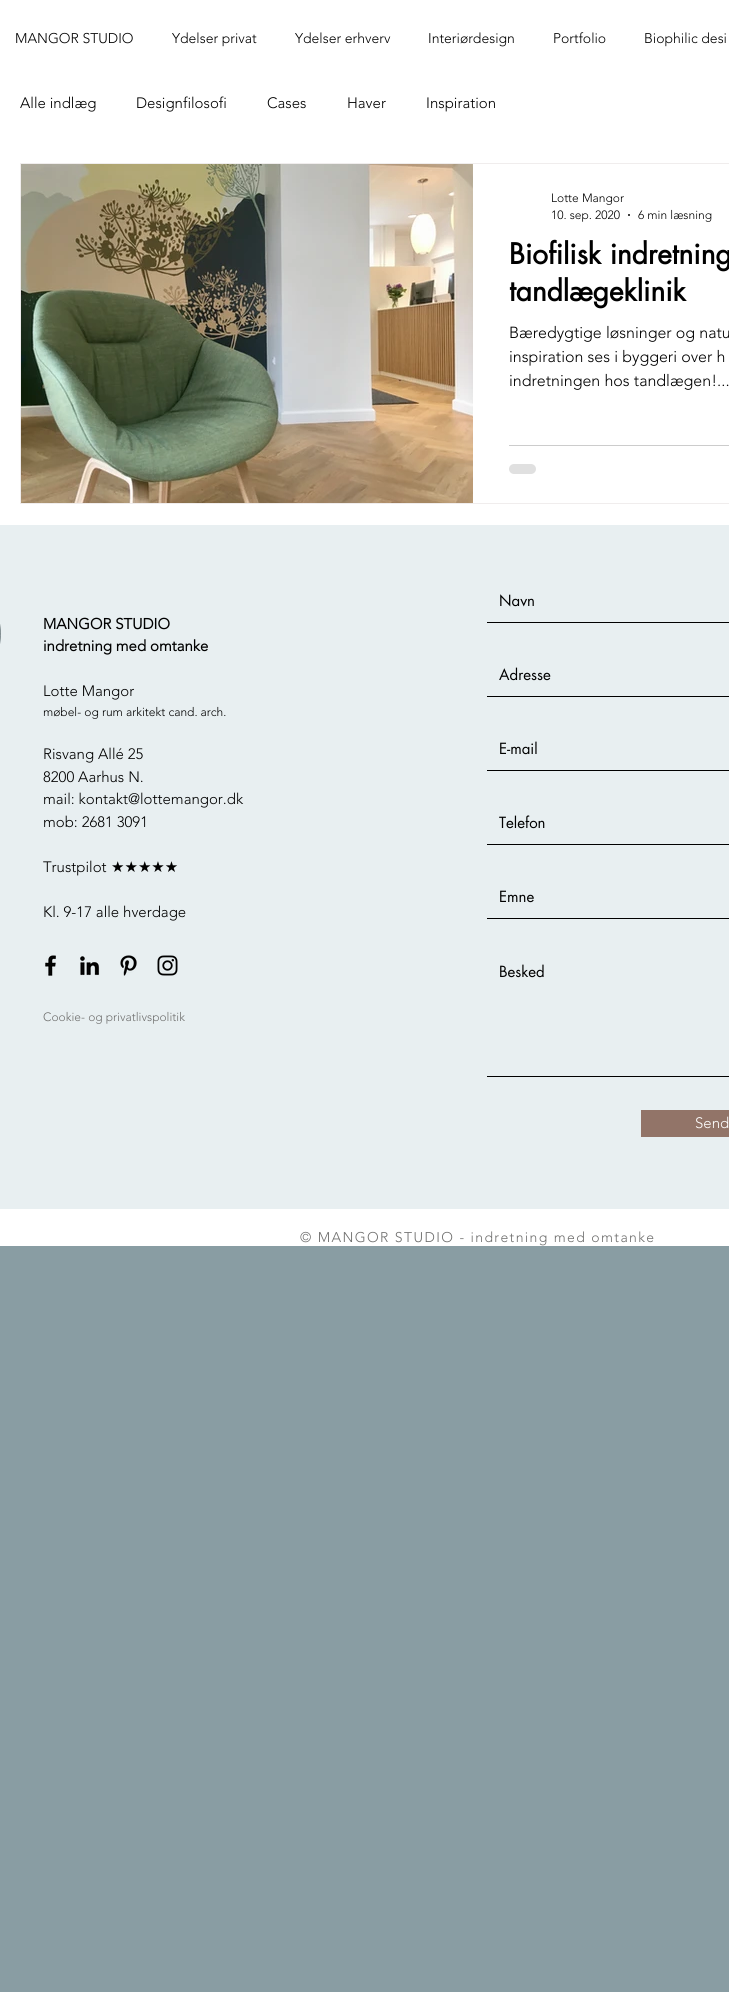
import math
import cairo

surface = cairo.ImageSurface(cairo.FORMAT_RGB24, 729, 1992)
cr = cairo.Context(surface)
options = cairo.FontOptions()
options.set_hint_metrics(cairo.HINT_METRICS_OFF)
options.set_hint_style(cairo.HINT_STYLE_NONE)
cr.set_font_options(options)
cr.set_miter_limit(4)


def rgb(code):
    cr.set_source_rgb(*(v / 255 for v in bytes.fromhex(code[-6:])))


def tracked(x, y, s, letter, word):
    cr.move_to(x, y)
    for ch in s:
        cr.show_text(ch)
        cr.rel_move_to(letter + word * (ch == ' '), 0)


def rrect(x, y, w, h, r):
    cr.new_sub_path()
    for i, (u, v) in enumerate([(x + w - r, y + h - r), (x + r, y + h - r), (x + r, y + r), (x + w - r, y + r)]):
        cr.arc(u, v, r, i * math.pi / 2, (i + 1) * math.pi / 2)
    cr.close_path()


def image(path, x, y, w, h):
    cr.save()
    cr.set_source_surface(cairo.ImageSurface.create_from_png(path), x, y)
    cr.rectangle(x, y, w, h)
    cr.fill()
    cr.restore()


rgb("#899da3")
cr.paint()
rgb("#ffffff")
cr.rectangle(0, 0, 729, 525)
cr.fill()
cr.rectangle(20.5, 163.5, 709, 340)
rgb("#f0eded")
cr.set_line_width(1)
cr.stroke()
image("img/1.png", 21, 164, 452, 339)
rgb("#000000")
cr.arc(629, 215, 1, 0, 2 * math.pi)
cr.fill()
rgb("#cccccc")
cr.rectangle(509, 445, 220, 1)
cr.fill()
rgb("#e0e0e0")
rrect(509, 464, 27, 10, 5)
cr.fill()
rgb("#e8eff1")
cr.rectangle(0, 525, 729, 684)
cr.fill()
image("img/2.png", 0, 624, 1, 20)
for x, y, w, h, color in [
    (487, 622, 242, 1, "#000000"),
    (487, 696, 242, 1, "#000000"),
    (487, 770, 242, 1, "#000000"),
    (487, 844, 242, 1, "#000000"),
    (487, 918, 242, 1, "#000000"),
    (487, 1076, 242, 1, "#000000"),
    (641, 1110, 88, 27, "#927468"),
]:
    rgb(color)
    cr.rectangle(x, y, w, h)
    cr.fill()
image("img/3.png", 45, 955, 11, 21)
image("img/4.png", 80, 956, 20, 20)
image("img/5.png", 120, 955, 17, 21)
image("img/6.png", 157, 955, 21, 21)
rgb("#ffffff")
cr.rectangle(0, 1209, 729, 37)
cr.fill()
cr.select_font_face("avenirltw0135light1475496 Light")
cr.set_font_size(14)
rgb("#000000")
for x, y, s in [
    (15, 43, "MANGOR STUDIO"),
    (172, 43, "Ydelser privat"),
    (295, 43, "Ydelser erhverv"),
    (428, 43, "Interiørdesign"),
    (553, 43, "Portfolio"),
    (644, 43, "Biophilic desi"),
]:
    cr.move_to(x, y)
    cr.show_text(s)
cr.set_font_size(15)
for x, y, s in [
    (20, 108, "Alle indlæg"),
    (136, 108, "Designfilosofi"),
    (267, 108, "Cases"),
    (347, 108, "Haver"),
    (426, 108, "Inspiration"),
]:
    cr.move_to(x, y)
    cr.show_text(s)
cr.set_font_size(12)
for x, y, s in [
    (551, 202, "Lotte Mangor"),
    (551, 219, "10. sep. 2020"),
    (638, 219, "6 min læsning"),
]:
    cr.move_to(x, y)
    cr.show_text(s)
cr.select_font_face("futura", cairo.FONT_SLANT_NORMAL, cairo.FONT_WEIGHT_BOLD)
cr.set_font_size(28)
cr.move_to(509, 264)
cr.show_text("Biofilisk indretning")
cr.move_to(509, 301)
cr.show_text("tandlægeklinik")
cr.select_font_face("avenirltw0135light1475496 Light")
cr.set_font_size(16)
for x, y, s in [
    (509, 338, "Bæredygtige løsninger og natu"),
    (509, 362, "inspiration ses i byggeri over h"),
    (509, 386, "indretningen hos tandlægen!..."),
]:
    cr.move_to(x, y)
    cr.show_text(s)
cr.select_font_face("avenirltw0135light1475496", cairo.FONT_SLANT_NORMAL, cairo.FONT_WEIGHT_BOLD)
cr.set_font_size(15)
cr.move_to(43, 629)
cr.show_text("MANGOR STUDIO")
cr.move_to(43, 651)
cr.show_text("indretning med omtanke")
cr.select_font_face("avenirltw0135light1475496 Light")
cr.move_to(43, 696)
cr.show_text("Lotte Mangor")
cr.set_font_size(12)
cr.move_to(43, 716)
cr.show_text("møbel- og rum arkitekt cand. arch.")
cr.set_font_size(15)
for x, y, s in [
    (43, 759, "Risvang Allé 25"),
    (43, 782, "8200 Aarhus N."),
    (43, 804, "mail: kontakt@lottemangor.dk"),
    (43, 827, "mob: 2681 3091"),
    (43, 872, "Trustpilot"),
]:
    cr.move_to(x, y)
    cr.show_text(s)
cr.select_font_face("DejaVu Sans")
cr.move_to(111, 872)
cr.show_text("★★★★★")
cr.select_font_face("avenirltw0135light1475496 Light")
cr.move_to(43, 917)
cr.show_text("Kl. 9-17 alle hverdage")
cr.select_font_face("futura")
for x, y, s in [
    (499, 606, "Navn"),
    (499, 680, "Adresse"),
    (499, 754, "E-mail"),
    (499, 828, "Telefon"),
    (499, 902, "Emne"),
    (499, 977, "Besked"),
]:
    cr.move_to(x, y)
    cr.show_text(s)
cr.select_font_face("avenirltw0135light1475496 Light")
rgb("#ffffff")
cr.move_to(695, 1128)
cr.show_text("Send")
cr.set_font_size(12)
rgb("#6e6e6d")
cr.move_to(43, 1021)
cr.show_text("Cookie- og privatlivspolitik")
cr.set_font_size(14)
tracked(300, 1242, "© MANGOR STUDIO - indretning med omtanke", 1.4, 0)
surface.write_to_png("page.png")
